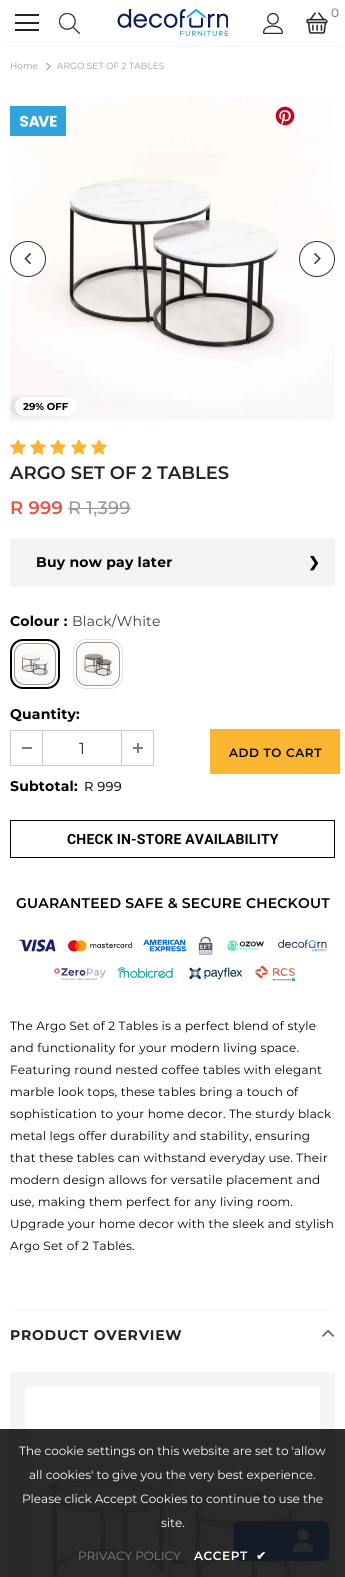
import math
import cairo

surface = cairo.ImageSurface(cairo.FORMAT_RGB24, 345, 1577)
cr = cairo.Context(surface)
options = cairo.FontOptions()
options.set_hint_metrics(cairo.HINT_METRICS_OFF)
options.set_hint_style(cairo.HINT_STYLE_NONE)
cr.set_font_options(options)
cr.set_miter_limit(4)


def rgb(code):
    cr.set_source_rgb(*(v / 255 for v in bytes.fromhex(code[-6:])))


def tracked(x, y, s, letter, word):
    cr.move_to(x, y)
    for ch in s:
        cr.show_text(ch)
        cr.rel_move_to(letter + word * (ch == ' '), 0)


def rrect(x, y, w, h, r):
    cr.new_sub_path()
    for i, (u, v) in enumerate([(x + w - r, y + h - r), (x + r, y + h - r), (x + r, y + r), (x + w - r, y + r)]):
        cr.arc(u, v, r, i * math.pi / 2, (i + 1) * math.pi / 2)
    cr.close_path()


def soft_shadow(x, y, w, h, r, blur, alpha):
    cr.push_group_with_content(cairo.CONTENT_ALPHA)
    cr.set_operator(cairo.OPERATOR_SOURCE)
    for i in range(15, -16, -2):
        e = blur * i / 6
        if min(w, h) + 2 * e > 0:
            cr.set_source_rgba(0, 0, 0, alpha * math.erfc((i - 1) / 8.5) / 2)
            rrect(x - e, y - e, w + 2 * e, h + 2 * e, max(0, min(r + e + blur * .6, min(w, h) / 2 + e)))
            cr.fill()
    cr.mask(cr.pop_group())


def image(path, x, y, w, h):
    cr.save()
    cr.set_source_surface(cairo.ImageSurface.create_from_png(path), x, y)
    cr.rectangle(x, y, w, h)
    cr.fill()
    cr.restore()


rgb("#ffffff")
cr.paint()
cr.save()
cr.rectangle(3, 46, 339, 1)
cr.clip()
rgb("#000000")
soft_shadow(3, 6, 339, 40, 0, 1.5, 0.12)
cr.restore()
for x, y, w, h, color in [
    (15, 14, 24, 2, "#232323"),
    (15, 22, 24, 2, "#232323"),
    (15, 29, 24, 2, "#232323"),
]:
    rgb(color)
    cr.rectangle(x, y, w, h)
    cr.fill()
image("img/1.png", 59, 13, 21, 21)
image("img/2.png", 117, 9, 111, 27)
image("img/3.png", 263, 13, 20, 21)
image("img/4.png", 306, 12, 22, 22)
rgb("#ffffff")
cr.arc(334.5, 11.5, 11.5, 0, 2 * math.pi)
cr.fill()
image("img/5.png", 46, 62, 5, 9)
image("img/6.png", 10, 96, 325, 325)
cr.arc(28, 259, 17.5, 0, 2 * math.pi)
cr.fill_preserve()
rgb("#323232")
cr.set_line_width(1)
cr.stroke()
image("img/7.png", 24, 253, 7, 12)
rgb("#ffffff")
cr.arc(317, 259, 17.5, 0, 2 * math.pi)
cr.fill_preserve()
rgb("#323232")
cr.stroke()
image("img/8.png", 314, 253, 7, 12)
image("img/9.png", 10, 106, 56, 30)
image("img/10.png", 275, 106, 20, 20)
rgb("#000000")
soft_shadow(10, 397, 61, 19, 9.5, 2.5, 0.1)
rgb("#ffffff")
rrect(15, 397, 61, 19, 9.5)
cr.fill()
image("img/11.png", 10, 439, 16, 16)
image("img/11.png", 30, 439, 16, 16)
image("img/11.png", 50, 439, 16, 16)
image("img/11.png", 71, 439, 16, 16)
image("img/11.png", 91, 439, 16, 16)
rgb("#f3f3f3")
cr.rectangle(10, 538, 325, 48)
cr.fill()
rrect(11, 640, 48, 48, 12)
rgb("#000000")
cr.set_line_width(2)
cr.stroke()
image("img/12.png", 15, 644, 40, 40)
rrect(14.5, 643.5, 41, 41, 10.5)
rgb("#9a9a9a")
cr.set_line_width(1)
cr.stroke()
rrect(73.5, 639.5, 49, 49, 12.5)
rgb("#e1e1e1")
cr.stroke()
image("img/13.png", 77, 643, 42, 42)
rrect(76.5, 642.5, 43, 43, 10.5)
rgb("#9a9a9a")
cr.stroke()
cr.rectangle(10.5, 730.5, 143, 35)
rgb("#cbcbcb")
cr.stroke()
for x, y, w, h, color in [
    (42, 731, 1, 34, "#cbcbcb"),
    (22, 747, 10, 2, "#7b7b7b"),
    (121, 731, 1, 34, "#cbcbcb"),
    (133, 747, 10, 2, "#7b7b7b"),
    (137, 743, 2, 10, "#7b7b7b"),
    (210, 729, 130, 45, "#fbb631"),
]:
    rgb(color)
    cr.rectangle(x, y, w, h)
    cr.fill()
cr.rectangle(10.5, 820.5, 324, 37)
rgb("#000000")
cr.stroke()
image("img/14.png", 18, 936, 309, 45)
rgb("#f6f6f6")
cr.rectangle(10, 1309, 325, 1)
cr.fill()
image("img/15.png", 322, 1329, 13, 8)
rgb("#f5f5f5")
cr.rectangle(10, 1372, 325, 205)
cr.fill()
image("img/16.png", 25, 1387, 295, 190)
rgb("#0967d2")
rrect(234, 1521, 95, 40, 6)
cr.fill()
image("img/17.png", 293, 1529, 20, 23)
cr.set_source_rgba(0.078, 0.078, 0.078, 0.9)
cr.rectangle(0, 1429, 345, 148)
cr.fill()
cr.select_font_face("Montserrat")
cr.set_font_size(12)
rgb("#646464")
cr.move_to(331, 17)
cr.show_text("0")
cr.set_font_size(9)
rgb("#999999")
cr.move_to(10, 69)
cr.show_text("Home")
cr.move_to(57, 69)
cr.show_text("ARGO SET OF 2 TABLES")
cr.select_font_face("Montserrat", cairo.FONT_SLANT_NORMAL, cairo.FONT_WEIGHT_BOLD)
cr.set_font_size(10)
rgb("#000000")
cr.move_to(23, 410)
cr.show_text("29% OFF")
cr.select_font_face("Montserrat SemiBold")
cr.set_font_size(18)
rgb("#232323")
cr.move_to(10, 479)
cr.show_text("ARGO SET OF 2 TABLES")
rgb("#e95144")
tracked(10, 514, "R 999", 0.2, 0)
cr.select_font_face("Montserrat Medium")
rgb("#999999")
tracked(68, 514, "R 1,399", 0.2, 0)
rgb("#969696")
cr.rectangle(68, 508, 63, 1)
cr.fill()
cr.select_font_face("Montserrat", cairo.FONT_SLANT_NORMAL, cairo.FONT_WEIGHT_BOLD)
cr.set_font_size(14)
rgb("#000000")
tracked(36, 567, "Buy now pay later", 0.2, 0)
cr.select_font_face("DejaVu Sans", cairo.FONT_SLANT_NORMAL, cairo.FONT_WEIGHT_BOLD)
tracked(308, 567, "❯", 0.2, 0)
cr.select_font_face("Montserrat", cairo.FONT_SLANT_NORMAL, cairo.FONT_WEIGHT_BOLD)
tracked(10, 626, "Colour :", 0.2, 0)
cr.select_font_face("Montserrat")
rgb("#3c3c3c")
tracked(72, 626, "Black/White", 0.2, 0)
cr.select_font_face("Montserrat", cairo.FONT_SLANT_NORMAL, cairo.FONT_WEIGHT_BOLD)
rgb("#000000")
tracked(10, 719, "Quantity:", 0.2, 0)
cr.select_font_face("Montserrat")
cr.set_font_size(16)
rgb("#2d2d2d")
cr.move_to(79, 754)
cr.show_text("1")
cr.select_font_face("Montserrat", cairo.FONT_SLANT_NORMAL, cairo.FONT_WEIGHT_BOLD)
cr.set_font_size(14)
rgb("#000000")
tracked(10, 791, "Subtotal:", 0.2, 0)
cr.select_font_face("Montserrat Medium")
cr.set_font_size(13)
rgb("#232323")
tracked(84, 791, "R 999", 0.2, 0)
cr.select_font_face("Montserrat SemiBold")
cr.set_font_size(12)
rgb("#000000")
tracked(229, 757, "ADD TO CART", 0.6, 0)
cr.select_font_face("Roboto", cairo.FONT_SLANT_NORMAL, cairo.FONT_WEIGHT_BOLD)
cr.set_font_size(14)
tracked(67, 844, "CHECK IN-STORE AVAILABILITY", 0.2, 0)
cr.select_font_face("Montserrat SemiBold")
tracked(16, 908, "GUARANTEED SAFE & SECURE CHECKOUT", 0.2, 0)
cr.select_font_face("Montserrat")
cr.set_font_size(12)
for x, y, s in [
    (10, 1030, "The Argo Set of 2 Tables is a perfect blend of style"),
    (10, 1052, "and functionality for your modern living space."),
    (10, 1074, "Featuring round nested coffee tables with elegant"),
    (10, 1096, "marble look tops, these tables bring a touch of"),
    (10, 1118, "sophistication to your home decor. The sturdy black"),
    (10, 1140, "metal legs offer durability and stability, ensuring"),
    (10, 1162, "that these tables can withstand everyday use. Their"),
    (10, 1184, "modern design allows for versatile placement and"),
    (10, 1206, "use, making them perfect for any living room."),
    (10, 1228, "Upgrade your home decor with the sleek and stylish"),
    (10, 1250, "Argo Set of 2 Tables."),
]:
    tracked(x, y, s, 0.2, 0)
cr.select_font_face("Montserrat", cairo.FONT_SLANT_NORMAL, cairo.FONT_WEIGHT_BOLD)
cr.set_font_size(14)
rgb("#232323")
tracked(10, 1340, "PRODUCT OVERVIEW", 0.75, 0)
cr.select_font_face("Montserrat")
cr.set_font_size(12)
rgb("#ffffff")
for x, y, s in [
    (19, 1455, "The cookie settings on this website are set to 'allow"),
    (29, 1479, "all cookies' to give you the very best experience."),
    (22, 1503, "Please click Accept Cookies to continue to use the"),
    (161, 1527, "site."),
]:
    cr.move_to(x, y)
    cr.show_text(s)
rgb("#818181")
cr.move_to(78, 1560)
cr.show_text("PRIVACY POLICY")
cr.select_font_face("Montserrat SemiBold")
rgb("#ffffff")
tracked(194, 1560, "ACCEPT", 0.6, 0)
cr.select_font_face("DejaVu Sans", cairo.FONT_SLANT_NORMAL, cairo.FONT_WEIGHT_BOLD)
tracked(256, 1560, "✔", 0.6, 0)
surface.write_to_png("page.png")
